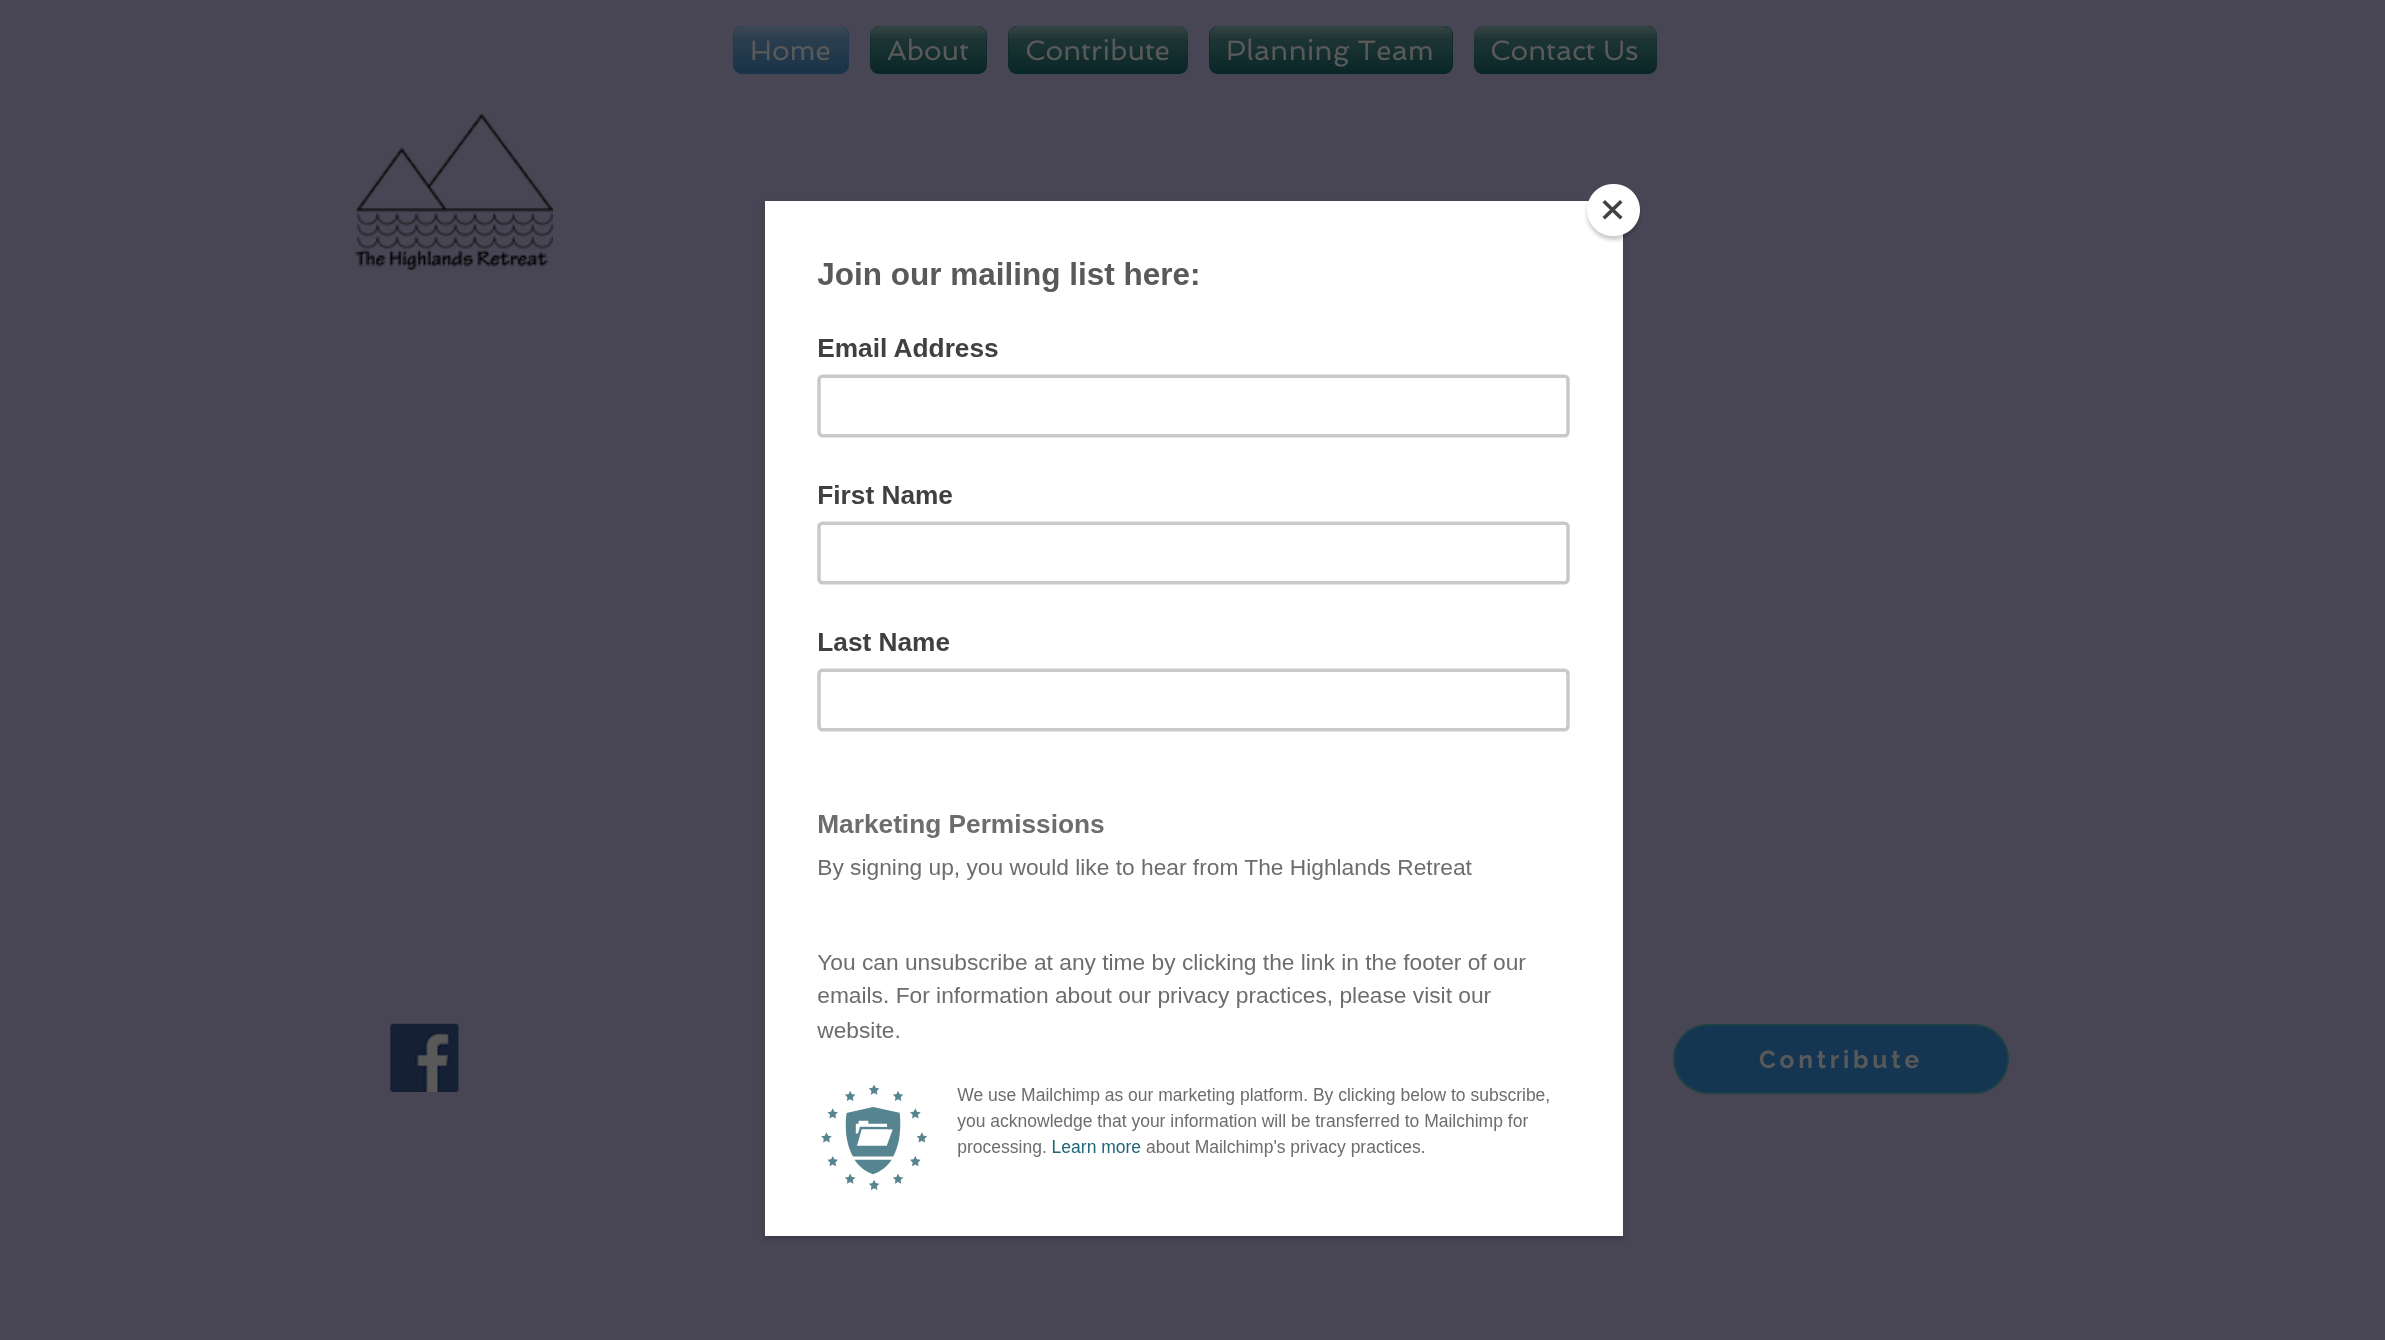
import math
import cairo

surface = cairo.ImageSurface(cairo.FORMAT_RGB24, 2385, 1340)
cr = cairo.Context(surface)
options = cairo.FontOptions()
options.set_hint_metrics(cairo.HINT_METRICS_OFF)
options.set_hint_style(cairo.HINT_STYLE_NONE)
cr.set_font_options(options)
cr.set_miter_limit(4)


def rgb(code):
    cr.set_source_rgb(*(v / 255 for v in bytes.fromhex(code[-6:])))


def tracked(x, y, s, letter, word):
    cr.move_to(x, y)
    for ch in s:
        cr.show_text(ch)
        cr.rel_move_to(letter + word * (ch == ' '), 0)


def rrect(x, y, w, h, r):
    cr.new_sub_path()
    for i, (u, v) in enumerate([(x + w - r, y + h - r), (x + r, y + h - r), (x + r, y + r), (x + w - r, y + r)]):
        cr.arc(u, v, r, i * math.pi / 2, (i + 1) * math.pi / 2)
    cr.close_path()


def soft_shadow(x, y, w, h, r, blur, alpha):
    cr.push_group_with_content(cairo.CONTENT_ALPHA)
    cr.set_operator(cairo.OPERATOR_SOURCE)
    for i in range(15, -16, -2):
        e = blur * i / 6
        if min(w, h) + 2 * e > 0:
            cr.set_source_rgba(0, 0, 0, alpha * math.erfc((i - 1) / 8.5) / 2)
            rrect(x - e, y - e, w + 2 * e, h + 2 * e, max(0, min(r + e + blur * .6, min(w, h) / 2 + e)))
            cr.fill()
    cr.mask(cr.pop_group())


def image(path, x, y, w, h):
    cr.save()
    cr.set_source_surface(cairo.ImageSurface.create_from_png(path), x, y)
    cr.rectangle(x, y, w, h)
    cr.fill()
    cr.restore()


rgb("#484655")
cr.paint()
rgb("#153652")
rrect(733, 26, 116, 48, 9)
cr.fill()
image("img/1.png", 733, 26, 116, 48)
image("img/2.png", 733, 26, 116, 48)
rgb("#002626")
rrect(870, 26, 117, 48, 9)
cr.fill()
image("img/3.png", 869, 26, 118, 48)
image("img/4.png", 869, 26, 118, 48)
rrect(1008, 26, 180, 48, 9)
cr.fill()
image("img/5.png", 1008, 26, 181, 48)
image("img/6.png", 1008, 26, 181, 48)
rrect(1209, 26, 244, 48, 9)
cr.fill()
image("img/7.png", 1209, 26, 244, 48)
image("img/8.png", 1209, 26, 244, 48)
rrect(1474, 26, 183, 48, 9)
cr.fill()
image("img/9.png", 1473, 26, 185, 48)
image("img/10.png", 1473, 26, 185, 48)
image("img/11.png", 354, 113, 199, 158)
image("img/12.png", 390, 1023, 69, 69)
rgb("#153652")
rrect(1674, 1025, 334, 68, 34)
cr.fill_preserve()
rgb("#1e4143")
cr.stroke()
rgb("#000000")
soft_shadow(765, 205, 857, 1034, 0, 3.5, 0.2)
image("img/13.png", 765, 201, 858, 1035)
soft_shadow(1587, 187, 53, 53, 26.5, 2, 0.2)
rgb("#ffffff")
rrect(1587, 184, 53, 52, 26)
cr.fill()
rgb("#414141")
cr.new_path()
cr.move_to(1620, 200)
cr.line_to(1622.5, 202.5)
cr.line_to(1605, 219.5)
cr.line_to(1602.5, 217)
cr.close_path()
cr.fill()
cr.new_path()
cr.move_to(1602.5, 202.5)
cr.line_to(1605, 200)
cr.line_to(1622.5, 217)
cr.line_to(1620, 219.5)
cr.close_path()
cr.fill()
cr.select_font_face("Spinnaker")
cr.set_font_size(28)
rgb("#595959")
for x, y, s in [
    (750, 60, "Home"),
    (887, 60, "About"),
    (1025, 60, "Contribute"),
    (1226, 60, "Planning Team"),
    (1490, 60, "Contact Us"),
]:
    cr.move_to(x, y)
    cr.show_text(s)
cr.select_font_face("Raleway", cairo.FONT_SLANT_NORMAL, cairo.FONT_WEIGHT_BOLD)
cr.set_font_size(24.5)
tracked(1759, 1068, "Contribute", 3.75, 0)
surface.write_to_png("page.png")
